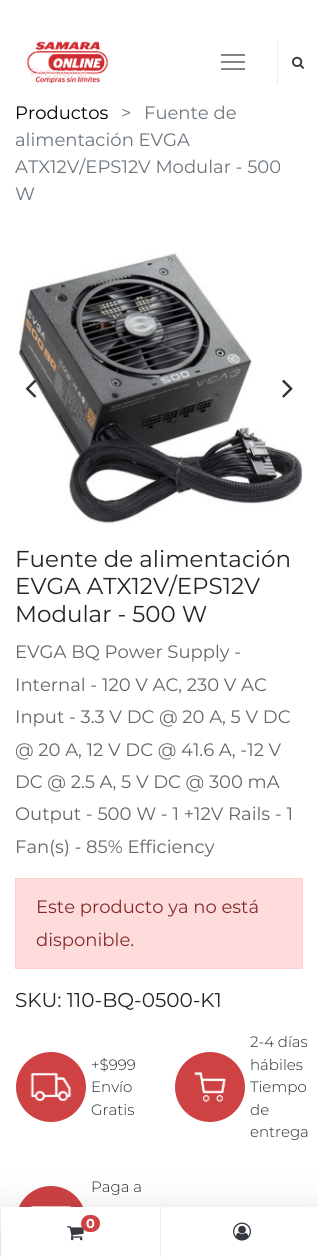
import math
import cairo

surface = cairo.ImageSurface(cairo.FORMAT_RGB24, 318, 1257)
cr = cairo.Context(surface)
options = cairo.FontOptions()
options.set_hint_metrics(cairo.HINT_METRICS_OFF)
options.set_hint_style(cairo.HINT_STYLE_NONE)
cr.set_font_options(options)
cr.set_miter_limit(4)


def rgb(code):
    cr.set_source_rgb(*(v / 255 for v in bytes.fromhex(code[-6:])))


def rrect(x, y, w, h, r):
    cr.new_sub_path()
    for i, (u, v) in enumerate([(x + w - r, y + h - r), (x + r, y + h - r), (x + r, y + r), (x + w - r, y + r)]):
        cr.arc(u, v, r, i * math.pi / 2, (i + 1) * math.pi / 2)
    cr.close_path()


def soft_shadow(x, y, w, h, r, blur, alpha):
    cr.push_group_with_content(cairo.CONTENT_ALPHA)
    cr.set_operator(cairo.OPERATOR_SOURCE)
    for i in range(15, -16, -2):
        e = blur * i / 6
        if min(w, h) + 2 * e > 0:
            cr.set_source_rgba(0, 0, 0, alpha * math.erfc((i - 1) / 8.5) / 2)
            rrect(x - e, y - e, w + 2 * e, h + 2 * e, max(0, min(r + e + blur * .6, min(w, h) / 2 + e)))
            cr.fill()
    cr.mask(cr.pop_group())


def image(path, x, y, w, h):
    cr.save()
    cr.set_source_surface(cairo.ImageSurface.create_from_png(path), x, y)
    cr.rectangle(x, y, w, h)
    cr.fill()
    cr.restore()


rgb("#ffffff")
cr.paint()
image("img/1.png", 19, 253, 283, 271)
image("img/2.png", 25, 379, 12, 19)
image("img/3.png", 282, 379, 11, 19)
rgb("#ffdcdc")
cr.rectangle(15.5, 878.5, 287, 90)
cr.fill_preserve()
rgb("#ffcece")
cr.set_line_width(1)
cr.stroke()
rgb("#ce4244")
cr.arc(51, 1087, 35, 0, 2 * math.pi)
cr.fill()
image("img/4.png", 30, 1072, 42, 30)
cr.arc(210, 1087, 35, 0, 2 * math.pi)
cr.fill()
image("img/5.png", 194, 1072, 32, 30)
cr.arc(51, 1221, 35, 0, 2 * math.pi)
cr.fill()
image("img/6.png", 30, 1206, 42, 1)
image("img/7.png", 26, 41, 83, 43)
for x, y, w, h, color in [
    (221, 54, 24, 2, "#828387"),
    (221, 61, 24, 2, "#828387"),
    (221, 68, 24, 2, "#828387"),
    (277, 40, 1, 45, "#ebebeb"),
]:
    rgb(color)
    cr.rectangle(x, y, w, h)
    cr.fill()
image("img/8.png", 292, 56, 12, 13)
rgb("#000000")
soft_shadow(-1, 1221, 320, 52, 0, 22.5, 0.2)
rgb("#ffffff")
cr.rectangle(1, 1207, 317, 50)
cr.fill()
rgb("#ebebeb")
cr.rectangle(0, 1207, 1, 24)
cr.fill()
image("img/9.png", 67, 1226, 17, 15)
rgb("#ce4244")
rrect(81, 1215, 19, 17, 8.5)
cr.fill()
rgb("#ebebeb")
cr.rectangle(160, 1207, 1, 50)
cr.fill()
image("img/10.png", 233, 1222, 18, 19)
cr.select_font_face("Montserrat")
cr.set_font_size(13)
rgb("#f5d1d3")
cr.move_to(30, 77)
cr.show_text("Presione")
cr.set_font_size(18)
rgb("#6c757d")
for x, y, s in [
    (121, 119, ">"),
    (144, 119, "Fuente de"),
    (15, 146, "alimentación EVGA"),
    (15, 173, "ATX12V/EPS12V Modular - 500"),
    (15, 200, "W"),
]:
    cr.move_to(x, y)
    cr.show_text(s)
rgb("#000000")
cr.move_to(15, 119)
cr.show_text("Productos")
cr.set_font_size(23)
rgb("#212529")
for x, y, s in [
    (15, 567, "Fuente de alimentación"),
    (15, 594, "EVGA ATX12V/EPS12V"),
    (15, 622, "Modular - 500 W"),
]:
    cr.move_to(x, y)
    cr.show_text(s)
cr.set_font_size(18)
rgb("#646669")
for x, y, s in [
    (15, 658, "EVGA BQ Power Supply -"),
    (15, 691, "Internal - 120 V AC, 230 V AC"),
    (15, 723, "Input - 3.3 V DC @ 20 A, 5 V DC"),
    (15, 756, "@ 20 A, 12 V DC @ 41.6 A, -12 V"),
    (15, 788, "DC @ 2.5 A, 5 V DC @ 300 mA"),
    (15, 820, "Output - 500 W - 1 +12V Rails - 1"),
    (15, 853, "Fan(s) - 85% Efficiency"),
]:
    cr.move_to(x, y)
    cr.show_text(s)
rgb("#852a2a")
cr.move_to(36, 913)
cr.show_text("Este producto ya no está")
cr.move_to(36, 946)
cr.show_text("disponible.")
cr.set_font_size(20)
rgb("#212529")
cr.move_to(15, 1007)
cr.show_text("SKU: 110-BQ-0500-K1")
cr.select_font_face("Montserrat Light")
cr.set_font_size(15)
for x, y, s in [
    (91, 1070, "+$999"),
    (91, 1092, "Envío"),
    (91, 1115, "Gratis"),
    (250, 1047, "2-4 días"),
    (250, 1070, "hábiles"),
    (250, 1092, "Tiempo"),
    (250, 1115, "de"),
    (250, 1137, "entrega"),
    (91, 1192, "Paga a"),
]:
    cr.move_to(x, y)
    cr.show_text(s)
cr.select_font_face("Montserrat", cairo.FONT_SLANT_NORMAL, cairo.FONT_WEIGHT_BOLD)
cr.set_font_size(13)
rgb("#ffffff")
cr.move_to(86, 1228)
cr.show_text("0")
surface.write_to_png("page.png")
